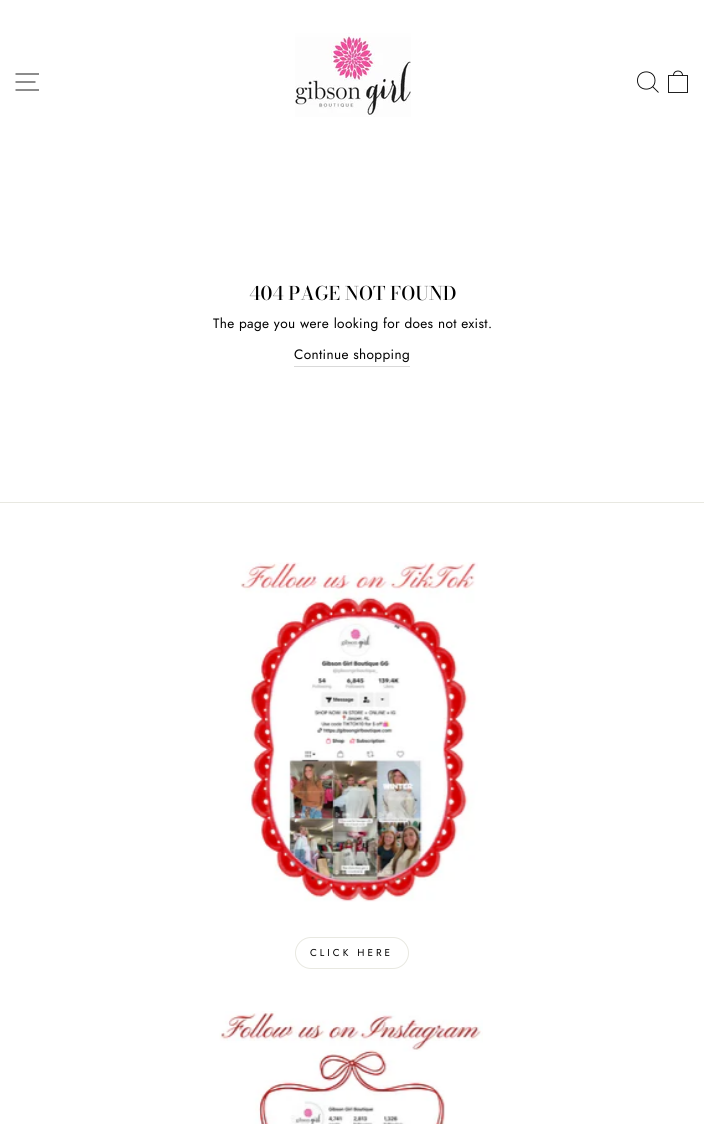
import math
import cairo

surface = cairo.ImageSurface(cairo.FORMAT_RGB24, 704, 1124)
cr = cairo.Context(surface)
options = cairo.FontOptions()
options.set_hint_metrics(cairo.HINT_METRICS_OFF)
options.set_hint_style(cairo.HINT_STYLE_NONE)
cr.set_font_options(options)
cr.set_miter_limit(4)


def rgb(code):
    cr.set_source_rgb(*(v / 255 for v in bytes.fromhex(code[-6:])))


def tracked(x, y, s, letter, word):
    cr.move_to(x, y)
    for ch in s:
        cr.show_text(ch)
        cr.rel_move_to(letter + word * (ch == ' '), 0)


def rrect(x, y, w, h, r):
    cr.new_sub_path()
    for i, (u, v) in enumerate([(x + w - r, y + h - r), (x + r, y + h - r), (x + r, y + r), (x + w - r, y + r)]):
        cr.arc(u, v, r, i * math.pi / 2, (i + 1) * math.pi / 2)
    cr.close_path()


def image(path, x, y, w, h):
    cr.save()
    cr.set_source_surface(cairo.ImageSurface.create_from_png(path), x, y)
    cr.rectangle(x, y, w, h)
    cr.fill()
    cr.restore()


rgb("#ffffff")
cr.paint()
cr.new_path()
cr.move_to(15.5, 74)
cr.line_to(39, 74)
cr.move_to(15.5, 82)
cr.line_to(35.5, 82)
cr.move_to(15.5, 90)
cr.line_to(39, 90)
rgb("#000000")
cr.set_line_width(0.9)
cr.stroke()
image("img/1.png", 295, 33, 116, 84)
cr.new_path()
cr.move_to(655, 80.5)
cr.curve_to(655, 92, 637.5, 92, 637.5, 80.5)
cr.curve_to(637.5, 69, 655, 69, 655, 80.5)
cr.close_path()
cr.move_to(658.5, 92.5)
cr.line_to(652.5, 86.5)
cr.move_to(668.5, 75.5)
cr.line_to(687.5, 75.5)
cr.line_to(687.5, 92.5)
cr.line_to(668.5, 92.5)
cr.close_path()
cr.move_to(673.5, 75.5)
cr.curve_to(673.5, 69.5, 682.5, 69.5, 682.5, 75.5)
cr.stroke()
rgb("#d9d9d9")
cr.rectangle(294, 366, 116, 1)
cr.fill()
rgb("#e8e8e1")
cr.rectangle(0, 502, 704, 1)
cr.fill()
image("img/2.png", 240, 562, 238, 340)
rrect(295.5, 937.5, 113, 31, 15.5)
cr.set_line_width(1)
cr.stroke()
image("img/3.png", 219, 1011, 264, 113)
cr.select_font_face("Bodoni Moda Medium")
cr.set_font_size(18.75)
rgb("#000000")
cr.move_to(249, 300)
cr.show_text("404 PAGE NOT FOUND")
cr.select_font_face("Jost")
cr.set_font_size(13.6)
tracked(213, 328, "The page you were looking for does not exist.", 0.35, 0)
tracked(294, 359, "Continue shopping", 0.35, 0)
cr.set_font_size(10)
tracked(310, 956, "CLICK HERE", 3, 0)
surface.write_to_png("page.png")
